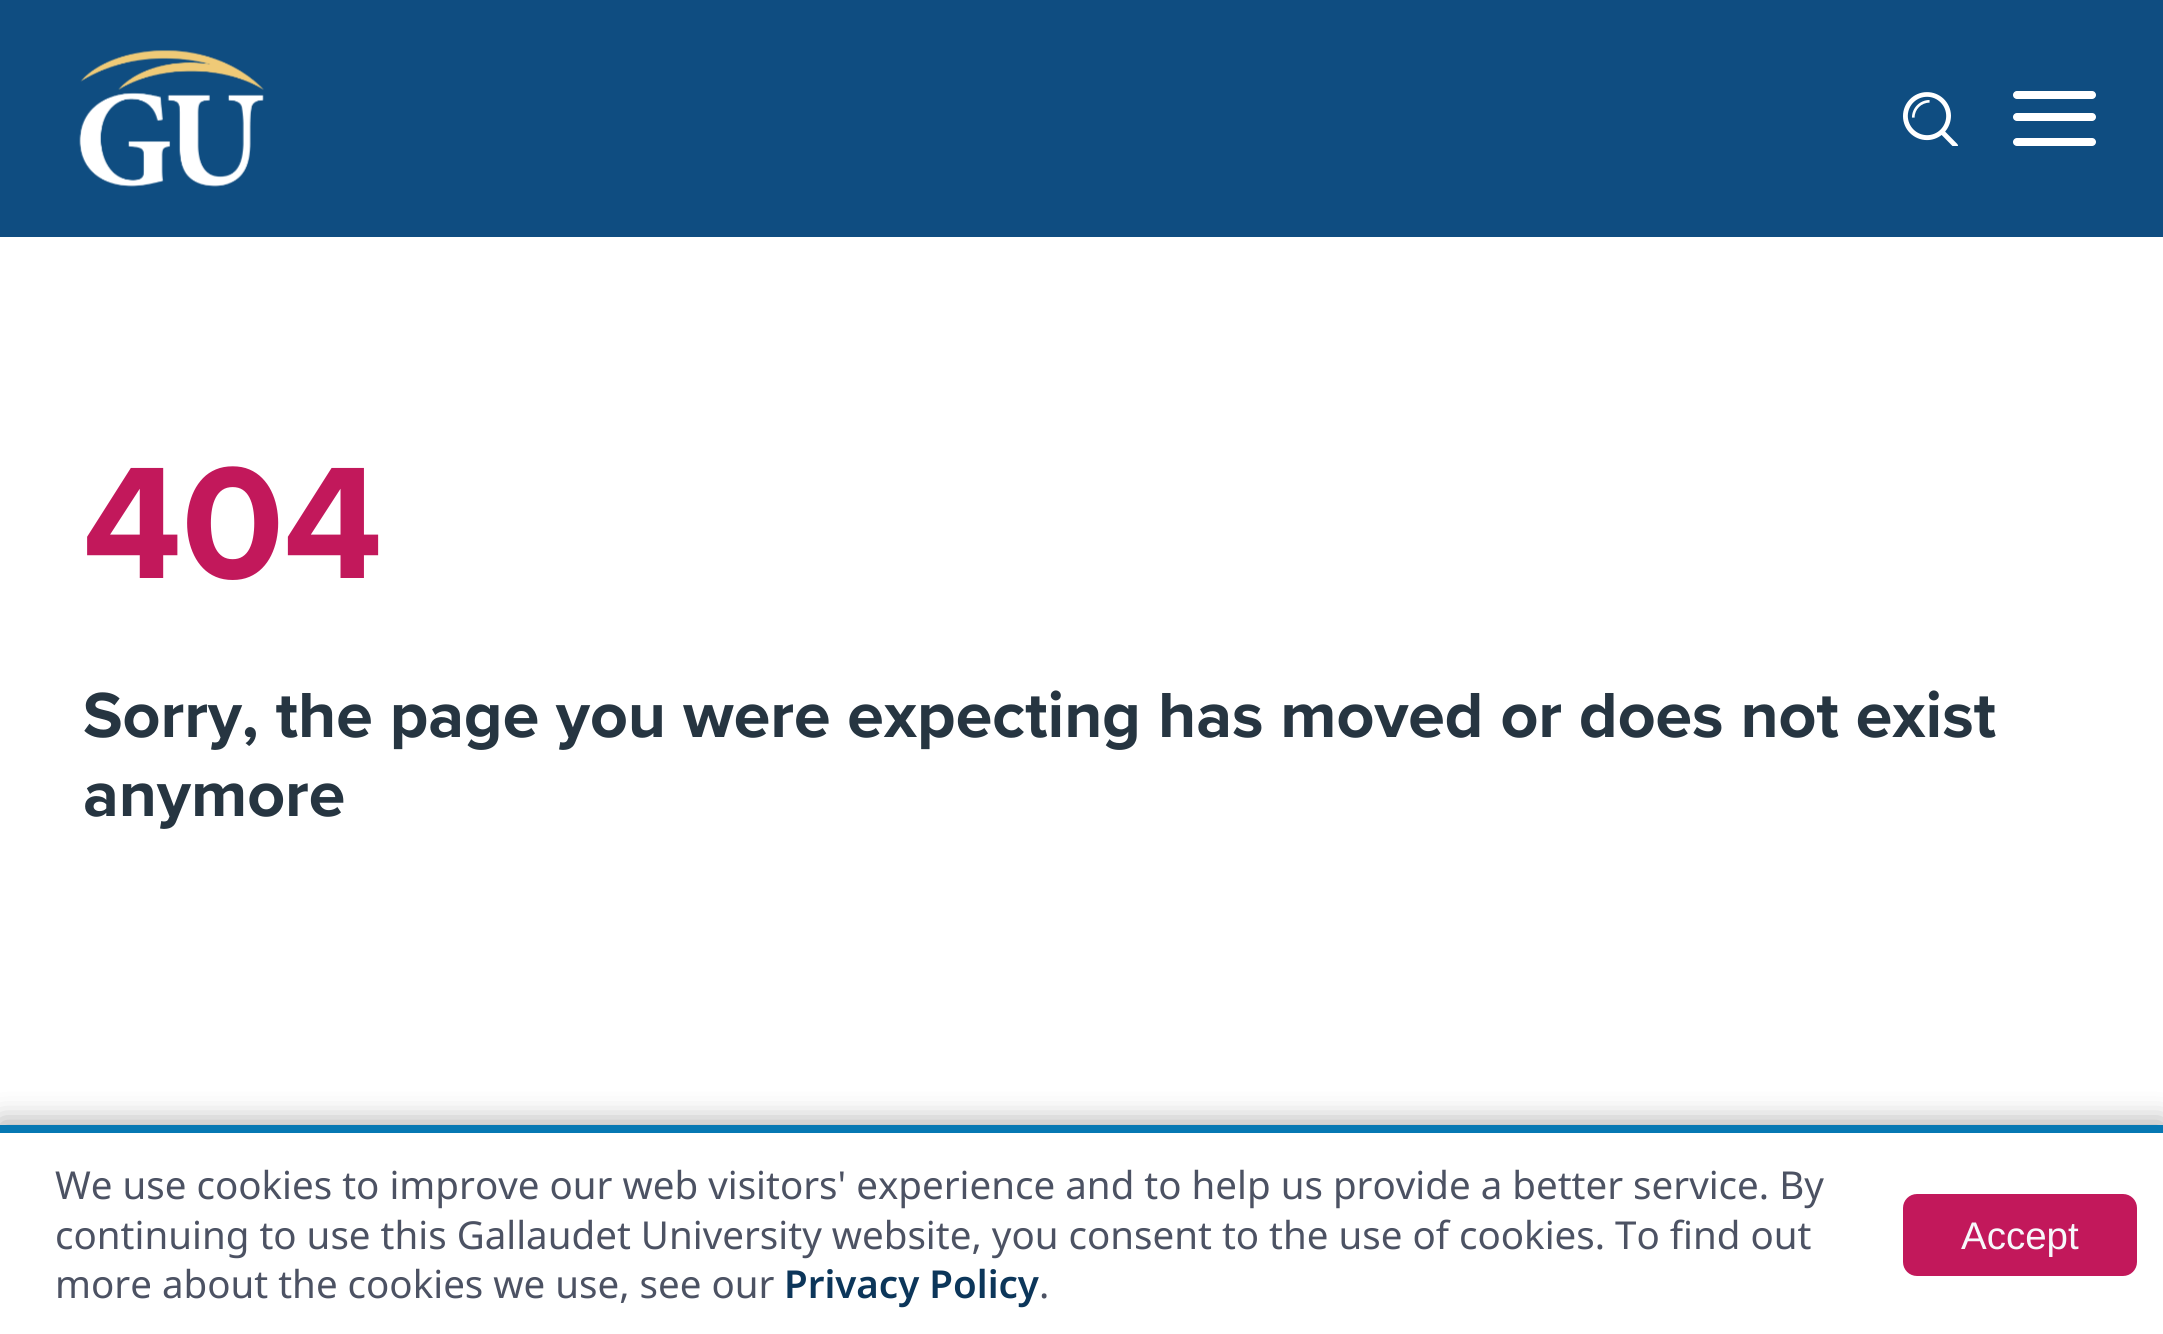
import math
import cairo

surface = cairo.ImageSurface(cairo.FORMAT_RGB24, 2163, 1334)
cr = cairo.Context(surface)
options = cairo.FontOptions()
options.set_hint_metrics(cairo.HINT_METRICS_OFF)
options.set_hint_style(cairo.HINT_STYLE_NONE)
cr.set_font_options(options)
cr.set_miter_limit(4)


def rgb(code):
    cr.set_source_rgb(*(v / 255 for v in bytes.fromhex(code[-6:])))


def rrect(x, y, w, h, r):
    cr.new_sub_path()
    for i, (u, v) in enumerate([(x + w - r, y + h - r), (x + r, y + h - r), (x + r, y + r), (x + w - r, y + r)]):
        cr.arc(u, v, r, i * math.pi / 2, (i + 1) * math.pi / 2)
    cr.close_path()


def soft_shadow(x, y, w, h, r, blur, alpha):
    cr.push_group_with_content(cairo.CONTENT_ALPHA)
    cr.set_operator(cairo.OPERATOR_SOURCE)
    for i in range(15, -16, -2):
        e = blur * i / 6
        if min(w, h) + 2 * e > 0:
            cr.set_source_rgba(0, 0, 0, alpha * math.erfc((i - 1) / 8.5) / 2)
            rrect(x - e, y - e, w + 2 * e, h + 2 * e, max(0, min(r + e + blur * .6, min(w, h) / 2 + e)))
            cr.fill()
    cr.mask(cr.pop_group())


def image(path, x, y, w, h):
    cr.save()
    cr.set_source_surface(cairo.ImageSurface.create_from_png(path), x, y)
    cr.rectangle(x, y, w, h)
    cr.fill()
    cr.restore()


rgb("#ffffff")
cr.paint()
rgb("#0f4d81")
cr.rectangle(0, 0, 2163, 237)
cr.fill()
image("img/1.png", 79, 50, 185, 137)
image("img/2.png", 1903, 92, 55, 54)
rgb("#ffffff")
rrect(2013, 91, 83, 8, 4)
cr.fill()
rrect(2013, 113, 83, 8, 4)
cr.fill()
rrect(2013, 138, 83, 8, 4)
cr.fill()
rgb("#000000")
soft_shadow(0, 1122, 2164, 212, 0, 14, 0.35)
rgb("#ffffff")
cr.rectangle(0, 1133, 2163, 201)
cr.fill()
rgb("#0678b3")
cr.rectangle(0, 1125, 2163, 8)
cr.fill()
rgb("#c2185b")
rrect(1904.5, 1195.5, 231, 79, 12.5)
cr.fill_preserve()
cr.set_line_width(3)
cr.stroke()
cr.select_font_face("Proxima Nova", cairo.FONT_SLANT_NORMAL, cairo.FONT_WEIGHT_BOLD)
cr.set_font_size(165)
cr.move_to(83, 578)
cr.show_text("404")
cr.set_font_size(66)
rgb("#263541")
cr.move_to(83, 737)
cr.show_text("Sorry, the page you were expecting has moved or does not exist")
cr.move_to(83, 816)
cr.show_text("anymore")
cr.select_font_face("Noto Sans")
cr.set_font_size(38.5)
rgb("#4c5263")
for x, y, s in [
    (55, 1199, "We use cookies to improve our web visitors' experience and to help us provide a better service. By"),
    (55, 1249, "continuing to use this Gallaudet University website, you consent to the use of cookies. To find out"),
    (55, 1298, "more about the cookies we use, see our"),
]:
    cr.move_to(x, y)
    cr.show_text(s)
cr.select_font_face("Noto Sans SemiBold")
rgb("#0c365a")
cr.move_to(784, 1298)
cr.show_text("Privacy Policy")
cr.select_font_face("Noto Sans")
rgb("#4c5263")
cr.move_to(1039, 1298)
cr.show_text(".")
cr.select_font_face("Liberation Sans")
rgb("#f7f8fb")
cr.move_to(1961, 1249)
cr.show_text("Accept")
surface.write_to_png("page.png")
